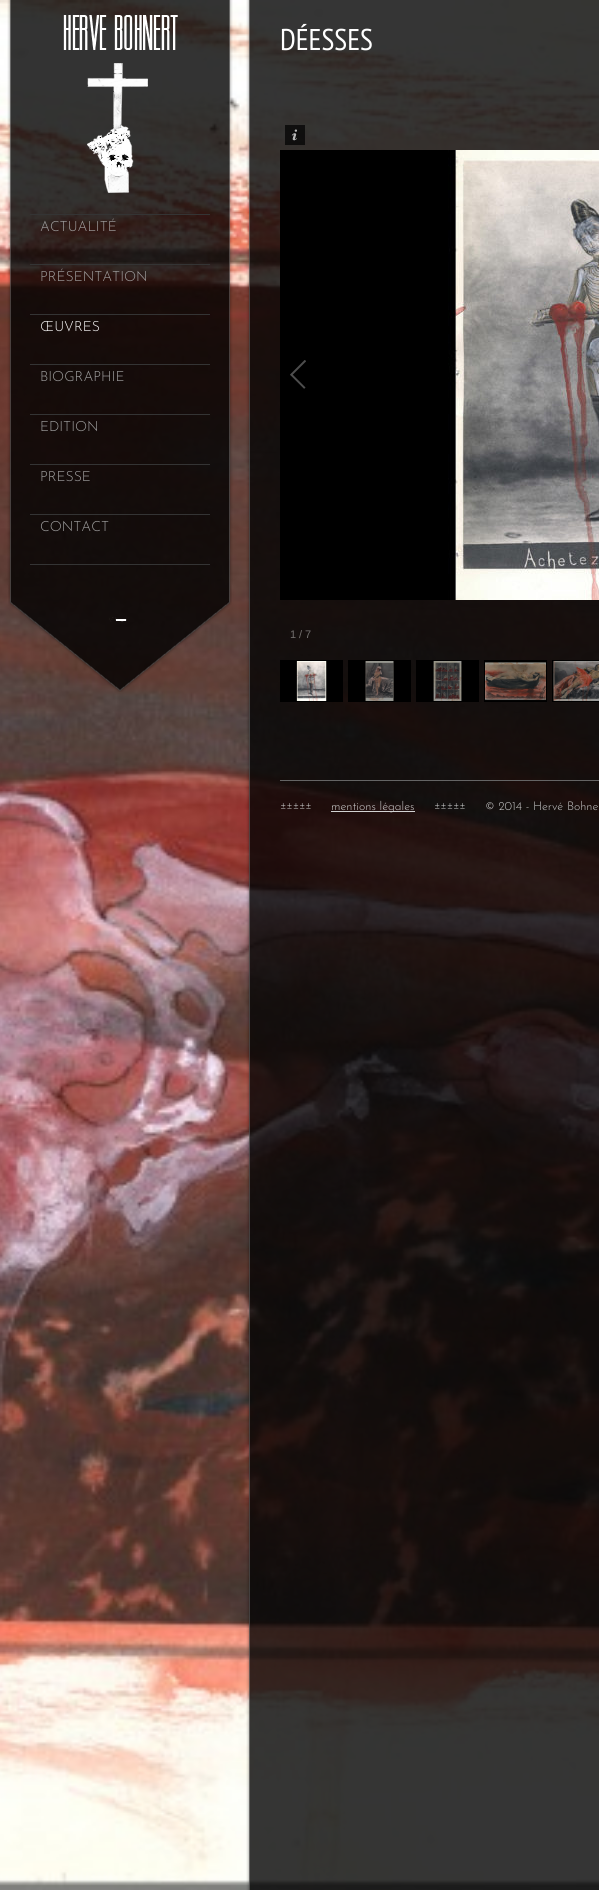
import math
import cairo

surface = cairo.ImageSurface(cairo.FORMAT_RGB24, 599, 1890)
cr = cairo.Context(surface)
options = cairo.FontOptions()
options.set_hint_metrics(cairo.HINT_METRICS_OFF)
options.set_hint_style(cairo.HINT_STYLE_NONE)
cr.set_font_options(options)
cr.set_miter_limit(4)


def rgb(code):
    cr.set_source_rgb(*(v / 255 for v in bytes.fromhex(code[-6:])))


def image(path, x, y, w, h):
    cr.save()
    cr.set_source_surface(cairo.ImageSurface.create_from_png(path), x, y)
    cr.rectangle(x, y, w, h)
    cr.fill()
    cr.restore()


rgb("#ffffff")
cr.paint()
image("img/1.png", 0, 0, 599, 1890)
image("img/2.png", 7, 0, 226, 585)
image("img/3.png", 63, 15, 115, 178)
for x, y, w, h, color in [
    (30, 214, 180, 1, "#343434"),
    (30, 264, 180, 1, "#343434"),
    (30, 314, 180, 1, "#343434"),
    (30, 364, 180, 1, "#343434"),
    (30, 414, 180, 1, "#343434"),
    (30, 464, 180, 1, "#343434"),
    (30, 514, 180, 1, "#343434"),
    (30, 564, 180, 1, "#343434"),
]:
    rgb(color)
    cr.rectangle(x, y, w, h)
    cr.fill()
image("img/4.png", 8, 585, 224, 107)
image("img/5.png", 109, 617, 18, 5)
image("img/6.png", 246, 0, 353, 1890)
cr.set_source_rgba(0, 0, 0, 0.7)
cr.rectangle(285, 125, 20, 20)
cr.fill()
image("img/7.png", 291, 129, 6, 12)
image("img/8.png", 280, 150, 319, 450)
image("img/9.png", 290, 360, 16, 29)
rgb("#000000")
cr.rectangle(280, 660, 63, 42)
cr.fill()
image("img/10.png", 296, 661, 31, 40)
cr.rectangle(348, 660, 63, 42)
cr.fill()
image("img/11.png", 365, 661, 29, 40)
cr.rectangle(416, 660, 63, 42)
cr.fill()
image("img/12.png", 433, 661, 29, 40)
cr.rectangle(484, 660, 63, 42)
cr.fill()
image("img/13.png", 485, 662, 61, 39)
cr.rectangle(552, 660, 47, 42)
cr.fill()
image("img/14.png", 553, 661, 46, 40)
rgb("#646464")
cr.rectangle(280, 780, 319, 1)
cr.fill()
rgb("#d2d2d2")
cr.rectangle(331, 811, 84, 1)
cr.fill()
cr.select_font_face("Josefin Sans Light")
cr.set_font_size(14)
rgb("#a3a3a3")
cr.move_to(40, 231)
cr.show_text("ACTUALITÉ")
cr.move_to(40, 281)
cr.show_text("PRÉSENTATION")
rgb("#ffffff")
cr.move_to(40, 331)
cr.show_text("ŒUVRES")
rgb("#a3a3a3")
for x, y, s in [
    (40, 381, "BIOGRAPHIE"),
    (40, 431, "EDITION"),
    (40, 481, "PRESSE"),
    (40, 531, "CONTACT"),
]:
    cr.move_to(x, y)
    cr.show_text(s)
cr.select_font_face("PT Sans Narrow")
cr.set_font_size(30)
rgb("#ffffff")
cr.move_to(280, 50)
cr.show_text("DÉESSES")
cr.select_font_face("Liberation Sans")
cr.set_font_size(11)
rgb("#726f6e")
for x, y, s in [
    (290, 638, "1"),
    (299, 638, "/"),
    (305, 638, "7"),
]:
    cr.move_to(x, y)
    cr.show_text(s)
cr.select_font_face("Josefin Sans Light")
cr.set_font_size(12)
rgb("#cccccc")
cr.move_to(280, 810)
cr.show_text("±±±±±")
rgb("#d2d2d2")
cr.move_to(331, 810)
cr.show_text("mentions légales")
rgb("#cccccc")
cr.move_to(434, 810)
cr.show_text("±±±±±")
cr.move_to(485, 810)
cr.show_text("© 2014 - Hervé Bohne")
surface.write_to_png("page.png")
